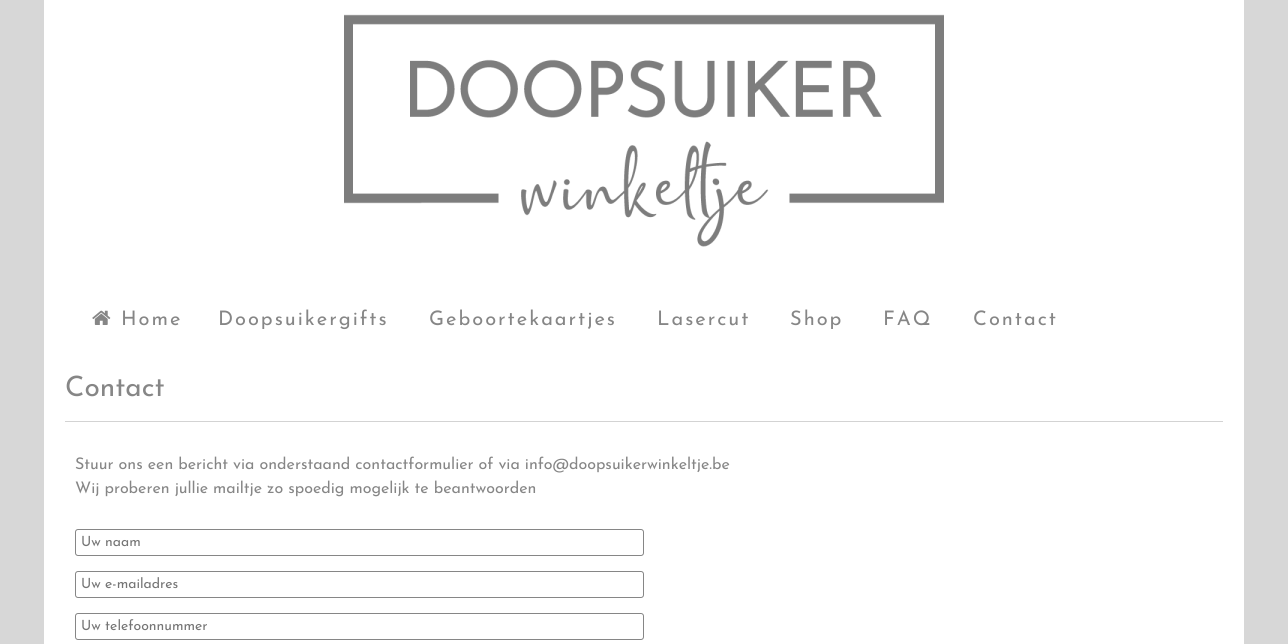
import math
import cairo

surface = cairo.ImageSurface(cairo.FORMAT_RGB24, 1288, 644)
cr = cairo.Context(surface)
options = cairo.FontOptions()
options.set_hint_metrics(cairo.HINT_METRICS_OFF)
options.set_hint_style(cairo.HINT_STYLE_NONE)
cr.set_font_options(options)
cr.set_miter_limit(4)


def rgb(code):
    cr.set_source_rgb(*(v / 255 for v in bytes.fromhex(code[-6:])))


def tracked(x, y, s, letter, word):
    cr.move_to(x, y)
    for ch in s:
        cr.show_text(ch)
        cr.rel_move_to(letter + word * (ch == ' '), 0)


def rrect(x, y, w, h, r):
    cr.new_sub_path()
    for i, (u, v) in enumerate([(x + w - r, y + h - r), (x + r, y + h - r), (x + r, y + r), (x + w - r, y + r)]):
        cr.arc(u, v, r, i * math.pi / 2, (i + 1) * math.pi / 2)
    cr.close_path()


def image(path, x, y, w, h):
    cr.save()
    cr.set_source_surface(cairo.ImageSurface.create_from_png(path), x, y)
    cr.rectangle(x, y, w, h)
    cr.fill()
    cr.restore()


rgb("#d7d7d7")
cr.paint()
rgb("#ffffff")
cr.rectangle(44, 0, 1200, 644)
cr.fill()
image("img/1.png", 344, 14, 600, 233)
image("img/2.png", 92, 310, 19, 15)
rgb("#d3d3d3")
cr.rectangle(65, 421, 1158, 1)
cr.fill()
rrect(75.5, 529.5, 568, 26, 2.5)
rgb("#868686")
cr.set_line_width(1)
cr.stroke()
rrect(75.5, 571.5, 568, 26, 2.5)
cr.stroke()
rrect(75.5, 613.5, 568, 26, 2.5)
cr.stroke()
cr.select_font_face("Josefin Sans Thin")
cr.set_font_size(20)
for x, y, s in [
    (121, 325, "Home"),
    (218, 325, "Doopsuikergifts"),
    (429, 325, "Geboortekaartjes"),
    (657, 325, "Lasercut"),
    (790, 325, "Shop"),
    (883, 325, "FAQ"),
    (973, 325, "Contact"),
]:
    tracked(x, y, s, 2, 0)
cr.set_font_size(28)
cr.move_to(65, 396)
cr.show_text("Contact")
cr.set_font_size(16)
cr.move_to(75, 469)
cr.show_text("Stuur ons een bericht via onderstaand contactformulier of via info@doopsuikerwinkeltje.be")
cr.move_to(75, 493)
cr.show_text("Wij proberen jullie mailtje zo spoedig mogelijk te beantwoorden")
cr.set_font_size(14)
rgb("#757575")
for x, y, s in [
    (81, 546, "Uw naam"),
    (81, 588, "Uw e-mailadres"),
    (81, 630, "Uw telefoonnummer"),
]:
    cr.move_to(x, y)
    cr.show_text(s)
surface.write_to_png("page.png")
